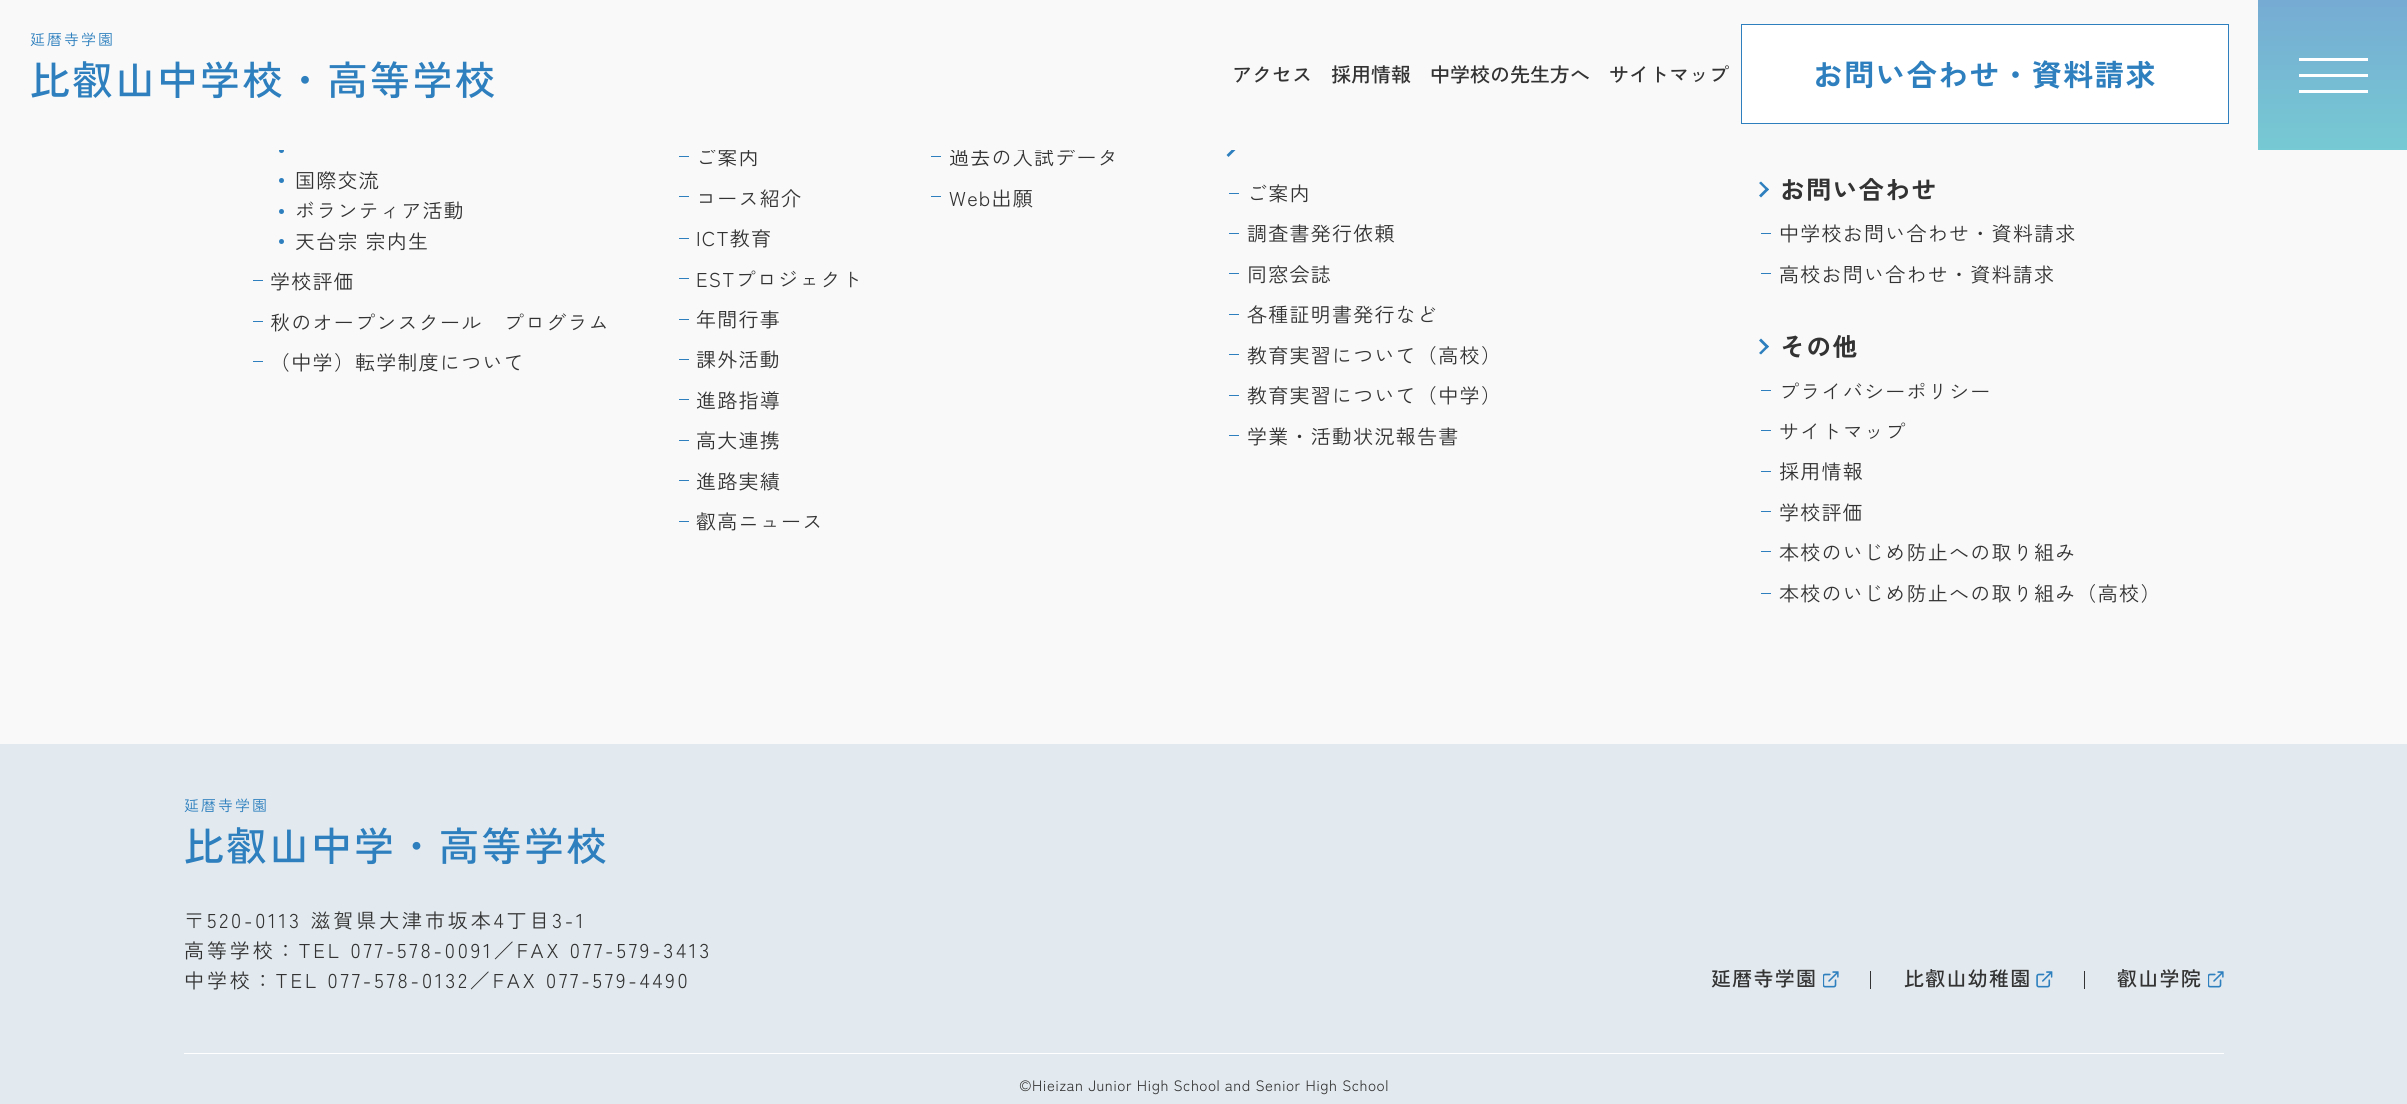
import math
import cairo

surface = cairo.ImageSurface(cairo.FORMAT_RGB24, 2407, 1104)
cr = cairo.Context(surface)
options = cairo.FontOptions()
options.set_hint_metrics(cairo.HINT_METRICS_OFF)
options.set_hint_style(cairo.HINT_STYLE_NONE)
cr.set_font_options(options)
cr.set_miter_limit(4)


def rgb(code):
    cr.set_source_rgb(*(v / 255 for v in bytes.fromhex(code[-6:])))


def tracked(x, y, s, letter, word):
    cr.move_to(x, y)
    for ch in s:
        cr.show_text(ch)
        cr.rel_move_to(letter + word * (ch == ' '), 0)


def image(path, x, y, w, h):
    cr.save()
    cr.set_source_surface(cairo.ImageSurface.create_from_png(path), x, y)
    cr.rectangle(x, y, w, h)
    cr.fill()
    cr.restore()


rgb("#f9f9f9")
cr.paint()
rgb("#ffffff")
cr.rectangle(1741.5, 24.5, 487, 99)
cr.fill_preserve()
rgb("#2d7fbe")
cr.set_line_width(1)
cr.stroke()
gradient = cairo.LinearGradient(2333, 0, 2333, 150)
gradient.add_color_stop_rgba(0, 0.463, 0.671, 0.827, 1)
gradient.add_color_stop_rgba(1, 0.463, 0.792, 0.827, 1)
cr.set_source(gradient)
cr.rectangle(2258, 0, 149, 150)
cr.fill()
for x, y, w, h, color in [
    (2299, 74, 69, 3, "#ffffff"),
    (2299, 58, 69, 3, "#ffffff"),
    (2299, 90, 69, 3, "#ffffff"),
]:
    rgb(color)
    cr.rectangle(x, y, w, h)
    cr.fill()
rgb("#2d7fbe")
cr.arc(281.5, 150.5, 2.5, 0, 2 * math.pi)
cr.fill()
cr.arc(281.5, 180.5, 2.5, 0, 2 * math.pi)
cr.fill()
cr.arc(281.5, 211.5, 2.5, 0, 2 * math.pi)
cr.fill()
cr.arc(281.5, 241.5, 2.5, 0, 2 * math.pi)
cr.fill()
for x, y, w, h, color in [
    (253, 280, 10, 1, "#2d7fbe"),
    (253, 321, 10, 1, "#2d7fbe"),
    (253, 361, 10, 1, "#2d7fbe"),
    (679, 156, 10, 1, "#2d7fbe"),
    (679, 196, 10, 1, "#2d7fbe"),
    (679, 238, 10, 1, "#2d7fbe"),
    (679, 278, 10, 1, "#2d7fbe"),
    (679, 319, 10, 1, "#2d7fbe"),
    (679, 359, 10, 1, "#2d7fbe"),
    (679, 399, 10, 1, "#2d7fbe"),
    (679, 440, 10, 1, "#2d7fbe"),
    (679, 480, 10, 1, "#2d7fbe"),
    (679, 521, 10, 1, "#2d7fbe"),
    (931, 156, 10, 1, "#2d7fbe"),
    (931, 196, 10, 1, "#2d7fbe"),
]:
    rgb(color)
    cr.rectangle(x, y, w, h)
    cr.fill()
cr.new_path()
cr.move_to(1234.5, 147)
cr.line_to(1236.5, 149)
cr.line_to(1228.5, 157)
cr.line_to(1226.5, 155)
cr.close_path()
cr.fill()
for x, y, w, h, color in [
    (1229, 193, 10, 1, "#2d7fbe"),
    (1229, 233, 10, 1, "#2d7fbe"),
    (1229, 273, 10, 1, "#2d7fbe"),
    (1229, 314, 10, 1, "#2d7fbe"),
    (1229, 354, 10, 1, "#2d7fbe"),
    (1229, 395, 10, 1, "#2d7fbe"),
    (1229, 435, 10, 1, "#2d7fbe"),
]:
    rgb(color)
    cr.rectangle(x, y, w, h)
    cr.fill()
cr.new_path()
cr.move_to(1761, 181.5)
cr.line_to(1769, 189.5)
cr.line_to(1767, 191)
cr.line_to(1759, 183)
cr.close_path()
cr.fill()
cr.new_path()
cr.move_to(1767, 187.5)
cr.line_to(1769, 189.5)
cr.line_to(1761, 197.5)
cr.line_to(1759, 195.5)
cr.close_path()
cr.fill()
cr.rectangle(1761, 233, 10, 1)
cr.fill()
cr.rectangle(1761, 273, 10, 1)
cr.fill()
cr.new_path()
cr.move_to(1761, 338.5)
cr.line_to(1769, 346.5)
cr.line_to(1767, 348.5)
cr.line_to(1759, 340.5)
cr.close_path()
cr.fill()
cr.new_path()
cr.move_to(1767, 345)
cr.line_to(1769, 346.5)
cr.line_to(1761, 354.5)
cr.line_to(1759, 353)
cr.close_path()
cr.fill()
for x, y, w, h, color in [
    (1761, 390, 10, 1, "#2d7fbe"),
    (1761, 430, 10, 1, "#2d7fbe"),
    (1761, 471, 10, 1, "#2d7fbe"),
    (1761, 511, 10, 1, "#2d7fbe"),
    (1761, 551, 10, 1, "#2d7fbe"),
    (1761, 593, 10, 1, "#2d7fbe"),
    (0, 744, 2407, 360, "#e3eaef"),
]:
    rgb(color)
    cr.rectangle(x, y, w, h)
    cr.fill()
image("img/1.png", 1823, 971, 16, 17)
rgb("#333333")
cr.rectangle(1870, 971, 1, 18)
cr.fill()
image("img/2.png", 2036, 971, 17, 17)
cr.rectangle(2084, 971, 1, 18)
cr.fill()
image("img/1.png", 2208, 971, 16, 17)
rgb("#ffffff")
cr.rectangle(184, 1053, 2040, 1)
cr.fill()
cr.select_font_face("Zen Kaku Gothic New")
cr.set_font_size(15)
rgb("#2d7fbe")
tracked(30, 45, "延暦寺学園", 2, 0)
cr.select_font_face("Zen Kaku Gothic New Medium")
cr.set_font_size(40)
tracked(30, 95, "比叡山中学校・高等学校", 2.5, 0)
cr.set_font_size(20)
rgb("#333333")
for x, y, s in [
    (1232, 82, "アクセス"),
    (1331, 82, "採用情報"),
    (1430, 82, "中学校の先生方へ"),
    (1609, 82, "サイトマップ"),
]:
    cr.move_to(x, y)
    cr.show_text(s)
cr.select_font_face("Zen Kaku Gothic New", cairo.FONT_SLANT_NORMAL, cairo.FONT_WEIGHT_BOLD)
cr.set_font_size(30)
rgb("#2d7fbe")
tracked(1813, 86, "お問い合わせ・資料請求", 1.25, 0)
cr.select_font_face("Zen Kaku Gothic New")
cr.set_font_size(20)
rgb("#333333")
for x, y, s in [
    (295, 188, "国際交流"),
    (295, 218, "ボランティア活動"),
    (295, 249, "天台宗 宗内生"),
    (270, 289, "学校評価"),
    (270, 330, "秋のオープンスクール　プログラム"),
    (270, 370, "（中学）転学制度について"),
    (696, 165, "ご案内"),
    (696, 206, "コース紹介"),
    (696, 246, "ICT教育"),
    (696, 287, "ESTプロジェクト"),
    (696, 327, "年間行事"),
    (696, 367, "課外活動"),
    (696, 408, "進路指導"),
    (696, 448, "高大連携"),
    (696, 489, "進路実績"),
    (696, 529, "叡高ニュース"),
    (949, 165, "過去の入試データ"),
]:
    tracked(x, y, s, 1.25, 0)
rgb("#f9f9f9")
cr.rectangle(279, 147, 958, 3)
cr.fill()
rgb("#333333")
for x, y, s in [
    (949, 206, "Web出願"),
    (1247, 201, "ご案内"),
    (1247, 241, "調査書発行依頼"),
    (1247, 282, "同窓会誌"),
    (1247, 322, "各種証明書発行など"),
    (1247, 363, "教育実習について（高校）"),
    (1247, 403, "教育実習について（中学）"),
    (1247, 444, "学業・活動状況報告書"),
]:
    tracked(x, y, s, 1.25, 0)
cr.select_font_face("Zen Kaku Gothic New", cairo.FONT_SLANT_NORMAL, cairo.FONT_WEIGHT_BOLD)
cr.set_font_size(25)
tracked(1780, 199, "お問い合わせ", 1.25, 0)
cr.select_font_face("Zen Kaku Gothic New")
cr.set_font_size(20)
tracked(1779, 241, "中学校お問い合わせ・資料請求", 1.25, 0)
tracked(1779, 282, "高校お問い合わせ・資料請求", 1.25, 0)
cr.select_font_face("Zen Kaku Gothic New", cairo.FONT_SLANT_NORMAL, cairo.FONT_WEIGHT_BOLD)
cr.set_font_size(25)
tracked(1780, 356, "その他", 1.25, 0)
cr.select_font_face("Zen Kaku Gothic New")
cr.set_font_size(20)
for x, y, s in [
    (1779, 399, "プライバシーポリシー"),
    (1779, 439, "サイトマップ"),
    (1779, 479, "採用情報"),
    (1779, 520, "学校評価"),
    (1779, 560, "本校のいじめ防止への取り組み"),
    (1779, 601, "本校のいじめ防止への取り組み（高校）"),
]:
    tracked(x, y, s, 1.25, 0)
cr.set_font_size(15)
rgb("#2d7fbe")
tracked(184, 811, "延暦寺学園", 2, 0)
cr.select_font_face("Zen Kaku Gothic New Medium")
cr.set_font_size(40)
tracked(184, 861, "比叡山中学・高等学校", 2.5, 0)
cr.select_font_face("Zen Kaku Gothic New")
cr.set_font_size(20)
rgb("#333333")
for x, y, s in [
    (184, 928, "〒520-0113 滋賀県大津市坂本4丁目3-1"),
    (184, 958, "高等学校：TEL 077-578-0091／FAX 077-579-3413"),
    (184, 988, "中学校：TEL 077-578-0132／FAX 077-579-4490"),
]:
    tracked(x, y, s, 2.9, 0)
cr.select_font_face("Zen Kaku Gothic New Medium")
for x, y, s in [
    (1711, 986, "延暦寺学園"),
    (1904, 986, "比叡山幼稚園"),
    (2117, 986, "叡山学院"),
]:
    tracked(x, y, s, 1.25, 0)
cr.select_font_face("Zen Kaku Gothic New")
cr.set_font_size(15)
tracked(1019, 1091, "©Hieizan Junior High School and Senior High School", 0.5, 0)
surface.write_to_png("page.png")
